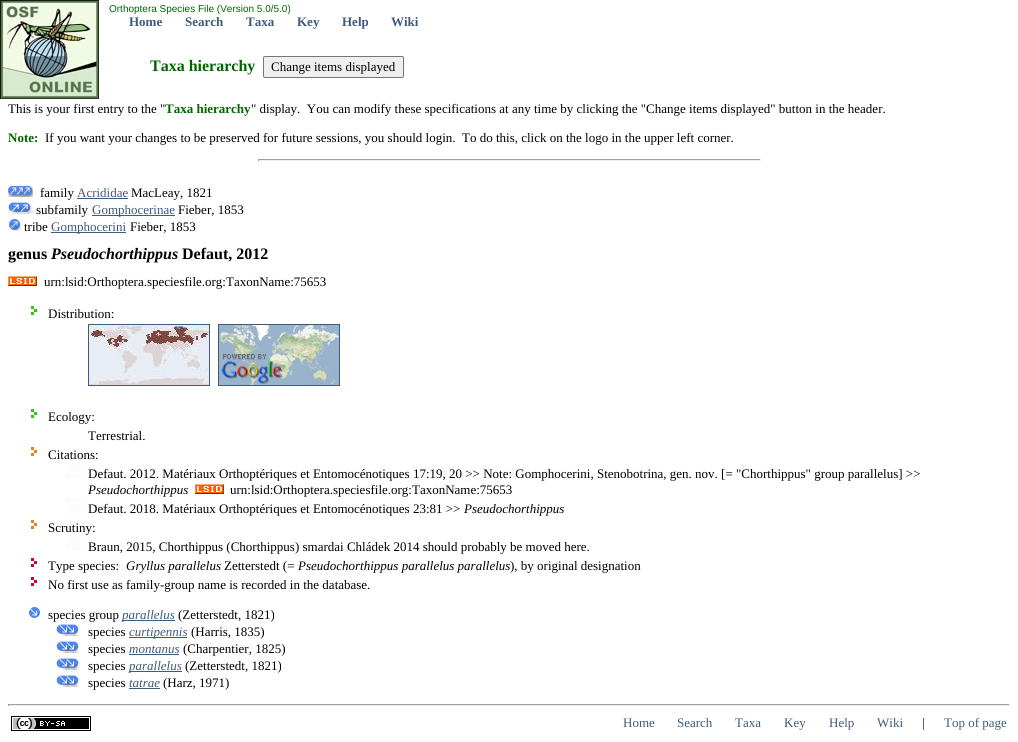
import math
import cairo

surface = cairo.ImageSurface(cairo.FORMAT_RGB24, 1018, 742)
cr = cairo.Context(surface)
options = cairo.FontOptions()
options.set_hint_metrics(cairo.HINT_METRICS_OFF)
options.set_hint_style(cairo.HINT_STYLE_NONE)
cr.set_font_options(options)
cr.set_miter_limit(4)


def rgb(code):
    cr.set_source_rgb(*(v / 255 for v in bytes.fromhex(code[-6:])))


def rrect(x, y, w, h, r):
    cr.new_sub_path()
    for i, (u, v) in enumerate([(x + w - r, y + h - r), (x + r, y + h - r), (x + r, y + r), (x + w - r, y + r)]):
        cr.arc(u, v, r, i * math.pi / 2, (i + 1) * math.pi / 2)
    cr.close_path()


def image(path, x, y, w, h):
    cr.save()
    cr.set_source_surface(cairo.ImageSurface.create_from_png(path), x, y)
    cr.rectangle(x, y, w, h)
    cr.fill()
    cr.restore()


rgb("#ffffff")
cr.paint()
image("img/1.png", 0, 0, 99, 99)
rgb("#efefef")
rrect(263.5, 56.5, 140, 21, 1.5)
cr.fill_preserve()
rgb("#767676")
cr.set_line_width(1)
cr.stroke()
for x, y, w, h, color in [
    (258, 159, 503, 1, "#9f9f9f"),
    (760, 159, 1, 2, "#eeeeee"),
    (258, 160, 503, 1, "#eeeeee"),
    (258, 159, 1, 2, "#9f9f9f"),
]:
    rgb(color)
    cr.rectangle(x, y, w, h)
    cr.fill()
image("img/2.png", 8, 185, 25, 12)
rgb("#3d5b7b")
cr.rectangle(77, 198, 51, 1)
cr.fill()
image("img/3.png", 8, 202, 25, 12)
cr.rectangle(92, 215, 83, 1)
cr.fill()
image("img/4.png", 9, 219, 12, 12)
cr.rectangle(51, 232, 75, 1)
cr.fill()
image("img/5.png", 8, 276, 29, 10)
image("img/6.png", 31, 306, 6, 9)
cr.rectangle(88.5, 324.5, 121, 61)
cr.stroke()
image("img/7.png", 217, 322, 123, 64)
image("img/8.png", 89, 325, 120, 60)
image("img/6.png", 31, 409, 6, 9)
image("img/9.png", 31, 447, 6, 9)
rgb("#fcfcfc")
cr.rectangle(66, 463, 15, 15)
cr.fill()
image("img/5.png", 195, 484, 29, 10)
cr.rectangle(66, 498, 15, 15)
cr.fill()
image("img/9.png", 31, 520, 6, 9)
cr.rectangle(66, 536, 15, 15)
cr.fill()
image("img/10.png", 31, 558, 6, 9)
image("img/10.png", 31, 577, 6, 9)
image("img/11.png", 29, 607, 11, 11)
rgb("#3d5b7b")
cr.rectangle(122, 620, 53, 1)
cr.fill()
image("img/12.png", 56, 624, 24, 12)
cr.rectangle(129, 637, 58, 1)
cr.fill()
image("img/12.png", 56, 641, 24, 12)
cr.rectangle(129, 654, 50, 1)
cr.fill()
image("img/12.png", 56, 658, 24, 12)
cr.rectangle(129, 671, 53, 1)
cr.fill()
image("img/12.png", 56, 675, 24, 12)
for x, y, w, h, color in [
    (129, 688, 31, 1, "#3d5b7b"),
    (8, 704, 1002, 1, "#9f9f9f"),
    (1009, 704, 1, 2, "#eeeeee"),
    (8, 705, 1002, 1, "#eeeeee"),
    (8, 704, 1, 2, "#9f9f9f"),
]:
    rgb(color)
    cr.rectangle(x, y, w, h)
    cr.fill()
image("img/13.png", 11, 716, 80, 15)
cr.select_font_face("Liberation Sans")
cr.set_font_size(10)
rgb("#006600")
cr.move_to(109, 12)
cr.show_text("Orthoptera Species File (Version 5.0/5.0)")
cr.select_font_face("Liberation Serif", cairo.FONT_SLANT_NORMAL, cairo.FONT_WEIGHT_BOLD)
cr.set_font_size(13)
rgb("#3d5b7b")
for x, y, s in [
    (129, 26, "Home"),
    (185, 26, "Search"),
    (246, 26, "Taxa"),
    (297, 26, "Key"),
    (342, 26, "Help"),
    (391, 26, "Wiki"),
]:
    cr.move_to(x, y)
    cr.show_text(s)
cr.set_font_size(16)
rgb("#006600")
cr.move_to(150, 71)
cr.show_text("Taxa hierarchy")
cr.select_font_face("Liberation Serif")
cr.set_font_size(13)
rgb("#000000")
cr.move_to(271, 71)
cr.show_text("Change items displayed")
cr.move_to(8, 113)
cr.show_text("This is your first entry to the \"")
cr.select_font_face("Liberation Serif", cairo.FONT_SLANT_NORMAL, cairo.FONT_WEIGHT_BOLD)
rgb("#006600")
cr.move_to(165, 113)
cr.show_text("Taxa hierarchy")
cr.select_font_face("Liberation Serif")
rgb("#000000")
cr.move_to(251, 113)
cr.show_text("\" display.  You can modify these specifications at any time by clicking the \"Change items displayed\" button in the header.")
cr.select_font_face("Liberation Serif", cairo.FONT_SLANT_NORMAL, cairo.FONT_WEIGHT_BOLD)
rgb("#006600")
cr.move_to(8, 142)
cr.show_text("Note:")
cr.select_font_face("Liberation Serif")
rgb("#000000")
cr.move_to(45, 142)
cr.show_text("If you want your changes to be preserved for future sessions, you should login.  To do this, click on the logo in the upper left corner.")
cr.move_to(40, 197)
cr.show_text("family")
rgb("#3d5b7b")
cr.move_to(77, 197)
cr.show_text("Acrididae")
rgb("#000000")
cr.move_to(131, 197)
cr.show_text("MacLeay, 1821")
cr.move_to(36, 214)
cr.show_text("subfamily")
rgb("#3d5b7b")
cr.move_to(92, 214)
cr.show_text("Gomphocerinae")
rgb("#000000")
cr.move_to(178, 214)
cr.show_text("Fieber, 1853")
cr.move_to(24, 231)
cr.show_text("tribe")
rgb("#3d5b7b")
cr.move_to(51, 231)
cr.show_text("Gomphocerini")
rgb("#000000")
cr.move_to(130, 231)
cr.show_text("Fieber, 1853")
cr.select_font_face("Liberation Serif", cairo.FONT_SLANT_NORMAL, cairo.FONT_WEIGHT_BOLD)
cr.set_font_size(16)
cr.move_to(8, 259)
cr.show_text("genus")
cr.select_font_face("Liberation Serif", cairo.FONT_SLANT_ITALIC, cairo.FONT_WEIGHT_BOLD)
cr.move_to(51, 259)
cr.show_text("Pseudochorthippus")
cr.select_font_face("Liberation Serif", cairo.FONT_SLANT_NORMAL, cairo.FONT_WEIGHT_BOLD)
cr.move_to(182, 259)
cr.show_text("Defaut, 2012")
cr.select_font_face("Liberation Serif")
cr.set_font_size(13)
for x, y, s in [
    (44, 286, "urn:lsid:Orthoptera.speciesfile.org:TaxonName:75653"),
    (48, 318, "Distribution:"),
    (48, 421, "Ecology:"),
    (88, 440, "Terrestrial."),
    (48, 459, "Citations:"),
    (88, 478, "Defaut. 2012. Matériaux Orthoptériques et Entomocénotiques 17:19, 20 >> Note: Gomphocerini, Stenobotrina, gen. nov. [= \"Chorthippus\" group parallelus] >>"),
]:
    cr.move_to(x, y)
    cr.show_text(s)
cr.select_font_face("Liberation Serif", cairo.FONT_SLANT_ITALIC)
cr.move_to(88, 494)
cr.show_text("Pseudochorthippus")
cr.select_font_face("Liberation Serif")
cr.move_to(230, 494)
cr.show_text("urn:lsid:Orthoptera.speciesfile.org:TaxonName:75653")
cr.move_to(88, 513)
cr.show_text("Defaut. 2018. Matériaux Orthoptériques et Entomocénotiques 23:81 >>")
cr.select_font_face("Liberation Serif", cairo.FONT_SLANT_ITALIC)
cr.move_to(464, 513)
cr.show_text("Pseudochorthippus")
cr.select_font_face("Liberation Serif")
for x, y, s in [
    (48, 532, "Scrutiny:"),
    (88, 551, "Braun, 2015, Chorthippus (Chorthippus) smardai Chládek 2014 should probably be moved here."),
    (48, 570, "Type species:"),
]:
    cr.move_to(x, y)
    cr.show_text(s)
cr.select_font_face("Liberation Serif", cairo.FONT_SLANT_ITALIC)
cr.move_to(126, 570)
cr.show_text("Gryllus parallelus")
cr.select_font_face("Liberation Serif")
cr.move_to(224, 570)
cr.show_text("Zetterstedt (=")
cr.select_font_face("Liberation Serif", cairo.FONT_SLANT_ITALIC)
cr.move_to(298, 570)
cr.show_text("Pseudochorthippus parallelus parallelus")
cr.select_font_face("Liberation Serif")
for x, y, s in [
    (510, 570, "), by original designation"),
    (48, 589, "No first use as family-group name is recorded in the database."),
    (48, 619, "species group"),
]:
    cr.move_to(x, y)
    cr.show_text(s)
cr.select_font_face("Liberation Serif", cairo.FONT_SLANT_ITALIC)
rgb("#3d5b7b")
cr.move_to(122, 619)
cr.show_text("parallelus")
cr.select_font_face("Liberation Serif")
rgb("#000000")
cr.move_to(178, 619)
cr.show_text("(Zetterstedt, 1821)")
cr.move_to(88, 636)
cr.show_text("species")
cr.select_font_face("Liberation Serif", cairo.FONT_SLANT_ITALIC)
rgb("#3d5b7b")
cr.move_to(129, 636)
cr.show_text("curtipennis")
cr.select_font_face("Liberation Serif")
rgb("#000000")
cr.move_to(191, 636)
cr.show_text("(Harris, 1835)")
cr.move_to(88, 653)
cr.show_text("species")
cr.select_font_face("Liberation Serif", cairo.FONT_SLANT_ITALIC)
rgb("#3d5b7b")
cr.move_to(129, 653)
cr.show_text("montanus")
cr.select_font_face("Liberation Serif")
rgb("#000000")
cr.move_to(183, 653)
cr.show_text("(Charpentier, 1825)")
cr.move_to(88, 670)
cr.show_text("species")
cr.select_font_face("Liberation Serif", cairo.FONT_SLANT_ITALIC)
rgb("#3d5b7b")
cr.move_to(129, 670)
cr.show_text("parallelus")
cr.select_font_face("Liberation Serif")
rgb("#000000")
cr.move_to(185, 670)
cr.show_text("(Zetterstedt, 1821)")
cr.move_to(88, 687)
cr.show_text("species")
cr.select_font_face("Liberation Serif", cairo.FONT_SLANT_ITALIC)
rgb("#3d5b7b")
cr.move_to(129, 687)
cr.show_text("tatrae")
cr.select_font_face("Liberation Serif")
rgb("#000000")
cr.move_to(163, 687)
cr.show_text("(Harz, 1971)")
rgb("#3d5b7b")
for x, y, s in [
    (623, 727, "Home"),
    (677, 727, "Search"),
    (735, 727, "Taxa"),
    (784, 727, "Key"),
    (829, 727, "Help"),
    (877, 727, "Wiki"),
]:
    cr.move_to(x, y)
    cr.show_text(s)
rgb("#000000")
cr.move_to(922, 727)
cr.show_text("|")
rgb("#3d5b7b")
cr.move_to(944, 727)
cr.show_text("Top of page")
surface.write_to_png("page.png")
